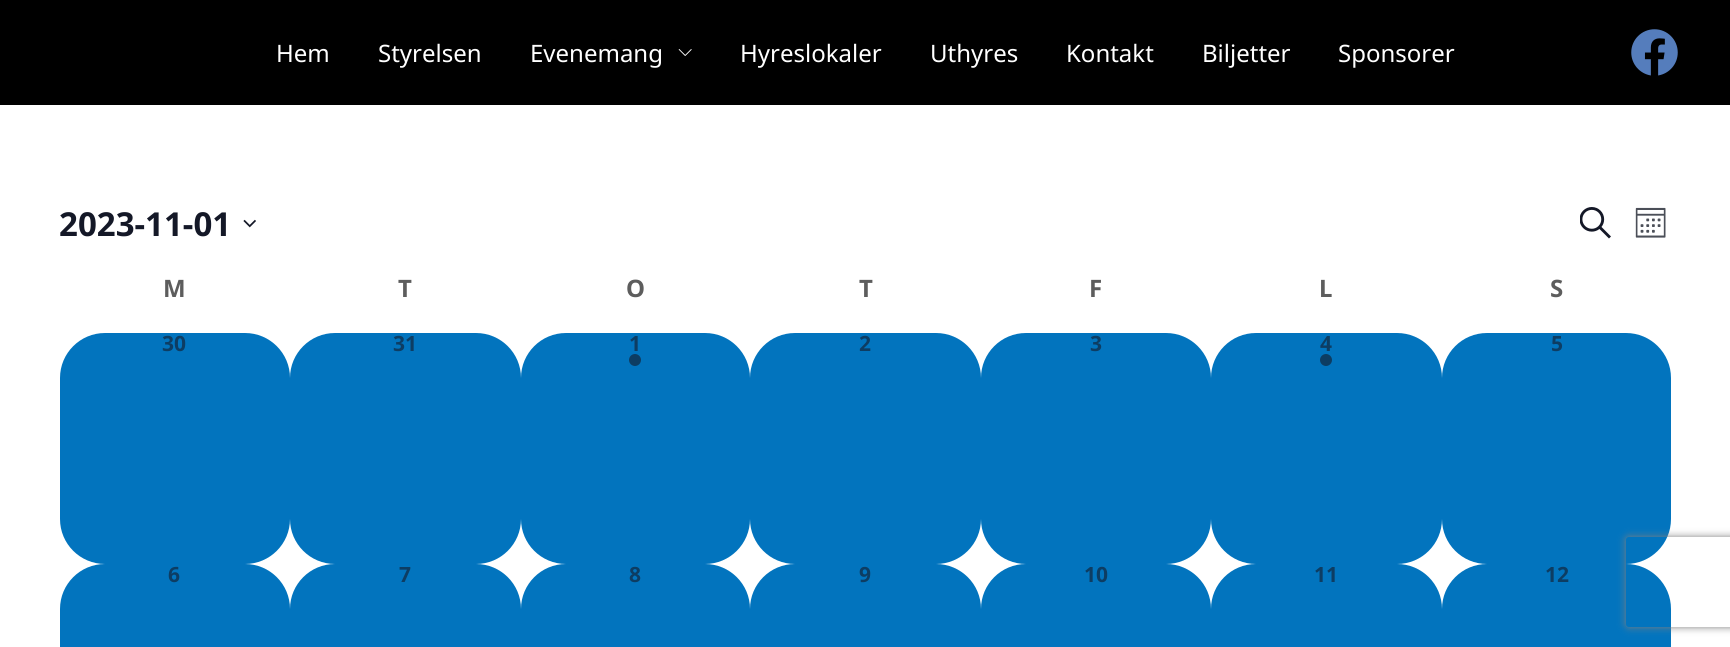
import math
import cairo

surface = cairo.ImageSurface(cairo.FORMAT_RGB24, 1730, 647)
cr = cairo.Context(surface)
options = cairo.FontOptions()
options.set_hint_metrics(cairo.HINT_METRICS_OFF)
options.set_hint_style(cairo.HINT_STYLE_NONE)
cr.set_font_options(options)
cr.set_miter_limit(4)


def rgb(code):
    cr.set_source_rgb(*(v / 255 for v in bytes.fromhex(code[-6:])))


def rrect(x, y, w, h, r):
    cr.new_sub_path()
    for i, (u, v) in enumerate([(x + w - r, y + h - r), (x + r, y + h - r), (x + r, y + r), (x + w - r, y + r)]):
        cr.arc(u, v, r, i * math.pi / 2, (i + 1) * math.pi / 2)
    cr.close_path()


def soft_shadow(x, y, w, h, r, blur, alpha):
    cr.push_group_with_content(cairo.CONTENT_ALPHA)
    cr.set_operator(cairo.OPERATOR_SOURCE)
    for i in range(15, -16, -2):
        e = blur * i / 6
        if min(w, h) + 2 * e > 0:
            cr.set_source_rgba(0, 0, 0, alpha * math.erfc((i - 1) / 8.5) / 2)
            rrect(x - e, y - e, w + 2 * e, h + 2 * e, max(0, min(r + e + blur * .6, min(w, h) / 2 + e)))
            cr.fill()
    cr.mask(cr.pop_group())


def image(path, x, y, w, h):
    cr.save()
    cr.set_source_surface(cairo.ImageSurface.create_from_png(path), x, y)
    cr.rectangle(x, y, w, h)
    cr.fill()
    cr.restore()


rgb("#ffffff")
cr.paint()
rgb("#000000")
cr.rectangle(0, 0, 1730, 105)
cr.fill()
image("img/1.png", 678, 49, 14, 7)
image("img/2.png", 1631, 29, 47, 47)
image("img/3.png", 243, 219, 13, 9)
image("img/4.png", 1580, 207, 31, 32)
image("img/5.png", 1635, 207, 31, 31)
rgb("#0274be")
rrect(60, 333, 230, 231, 45)
cr.fill()
rrect(290, 333, 231, 231, 45)
cr.fill()
rrect(521, 333, 229, 231, 45)
cr.fill()
rgb("#0d3d63")
cr.arc(635, 360, 6, 0, 2 * math.pi)
cr.fill()
rgb("#0274be")
rrect(750, 333, 231, 231, 45)
cr.fill()
rrect(981, 333, 230, 231, 45)
cr.fill()
rrect(1211, 333, 231, 231, 45)
cr.fill()
rgb("#0d3d63")
cr.arc(1326, 360, 6, 0, 2 * math.pi)
cr.fill()
rgb("#0274be")
rrect(1442, 333, 229, 231, 45)
cr.fill()
rrect(60, 564, 230, 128, 45)
cr.fill()
rrect(290, 564, 231, 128, 45)
cr.fill()
rrect(521, 564, 229, 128, 45)
cr.fill()
rrect(750, 564, 231, 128, 45)
cr.fill()
rrect(981, 564, 230, 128, 45)
cr.fill()
rrect(1211, 564, 231, 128, 45)
cr.fill()
rrect(1442, 564, 229, 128, 45)
cr.fill()
cr.save()
cr.set_fill_rule(cairo.FILL_RULE_EVEN_ODD)
cr.new_path()
cr.move_to(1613, 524)
cr.line_to(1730, 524)
cr.line_to(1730, 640)
cr.line_to(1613, 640)
cr.close_path()
cr.move_to(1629, 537)
cr.line_to(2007, 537)
cr.curve_to(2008.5, 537, 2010, 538.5, 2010, 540)
cr.line_to(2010, 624)
cr.curve_to(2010, 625.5, 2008.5, 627, 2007, 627)
cr.line_to(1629, 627)
cr.curve_to(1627.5, 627, 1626, 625.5, 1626, 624)
cr.line_to(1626, 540)
cr.curve_to(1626, 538.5, 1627.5, 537, 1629, 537)
cr.close_path()
cr.clip()
rgb("#808080")
soft_shadow(1626, 537, 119, 90, 3, 4, 1)
cr.restore()
cr.select_font_face("Noto Sans")
cr.set_font_size(24)
rgb("#ffffff")
for x, y, s in [
    (276, 62, "Hem"),
    (378, 62, "Styrelsen"),
    (530, 62, "Evenemang"),
    (740, 62, "Hyreslokaler"),
    (930, 62, "Uthyres"),
    (1066, 62, "Kontakt"),
    (1202, 62, "Biljetter"),
    (1338, 62, "Sponsorer"),
]:
    cr.move_to(x, y)
    cr.show_text(s)
cr.select_font_face("Noto Sans", cairo.FONT_SLANT_NORMAL, cairo.FONT_WEIGHT_BOLD)
cr.set_font_size(33)
rgb("#141827")
cr.move_to(59, 236)
cr.show_text("2023-11-01")
cr.set_font_size(24)
rgb("#5d5d5d")
for x, y, s in [
    (163, 297, "M"),
    (398, 297, "T"),
    (626, 297, "O"),
    (859, 297, "T"),
    (1089, 297, "F"),
    (1319, 297, "L"),
    (1550, 297, "S"),
]:
    cr.move_to(x, y)
    cr.show_text(s)
cr.set_font_size(21)
rgb("#0d3d63")
for x, y, s in [
    (162, 351, "30"),
    (393, 351, "31"),
    (629, 351, "1"),
    (859, 351, "2"),
    (1090, 351, "3"),
    (1320, 351, "4"),
    (1551, 351, "5"),
    (168, 582, "6"),
    (399, 582, "7"),
    (629, 582, "8"),
    (859, 582, "9"),
    (1084, 582, "10"),
    (1314, 582, "11"),
    (1545, 582, "12"),
]:
    cr.move_to(x, y)
    cr.show_text(s)
surface.write_to_png("page.png")
